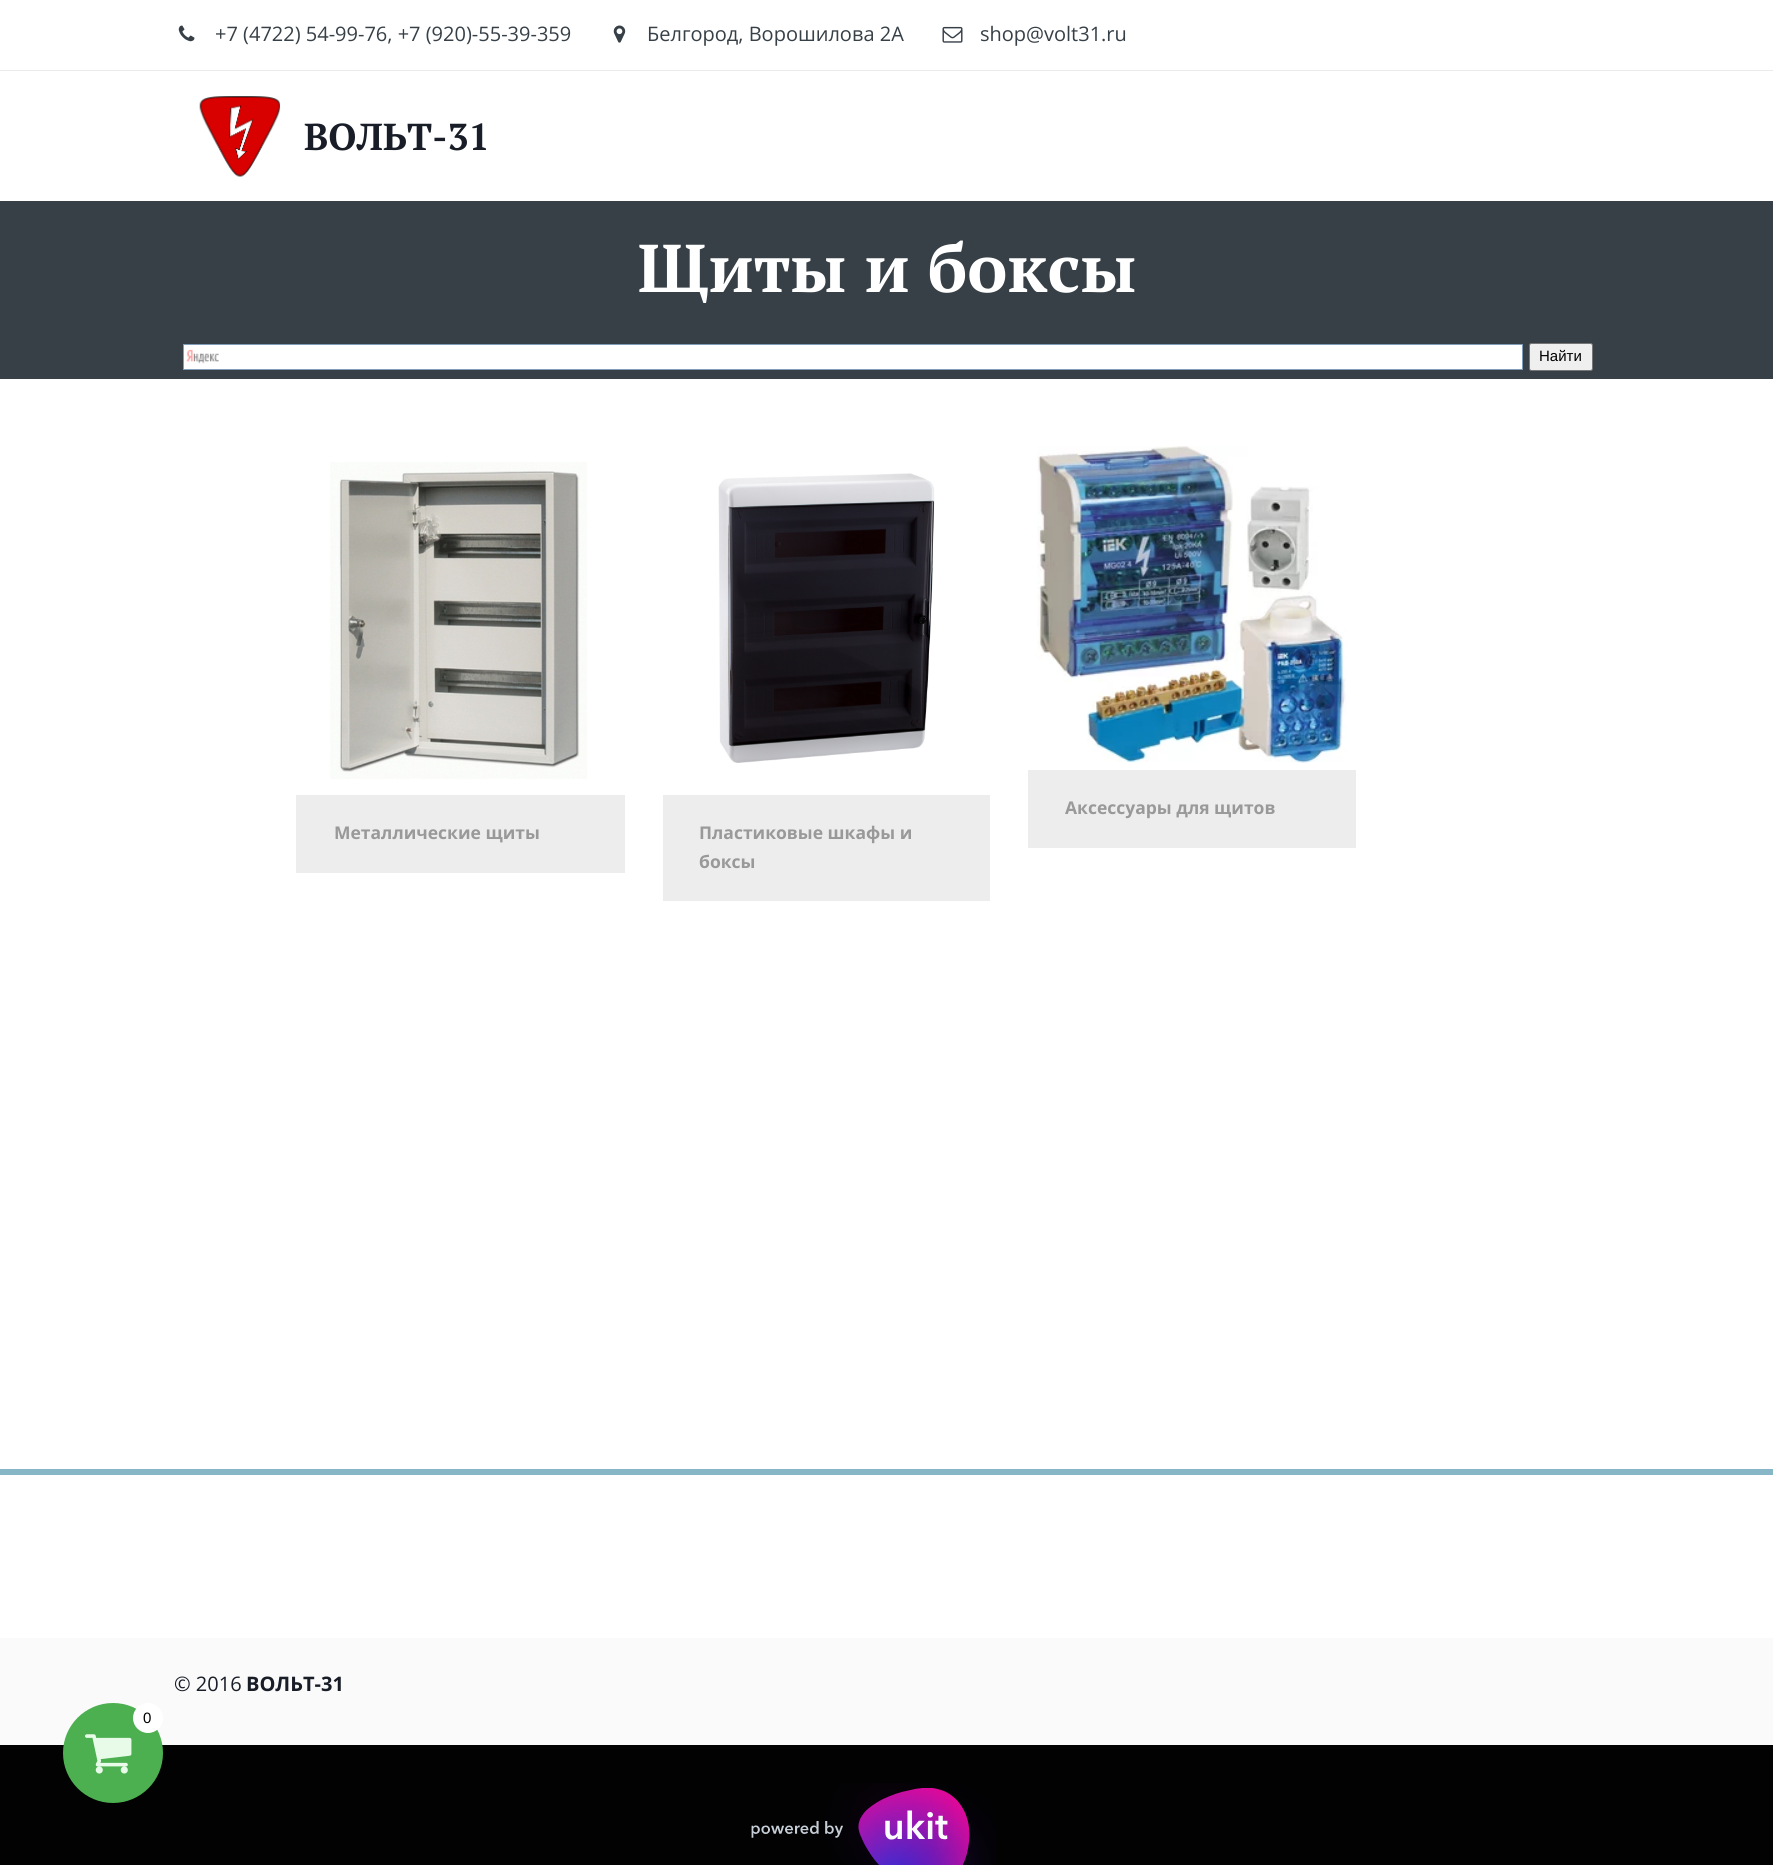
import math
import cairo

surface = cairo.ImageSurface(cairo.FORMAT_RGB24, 1773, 1865)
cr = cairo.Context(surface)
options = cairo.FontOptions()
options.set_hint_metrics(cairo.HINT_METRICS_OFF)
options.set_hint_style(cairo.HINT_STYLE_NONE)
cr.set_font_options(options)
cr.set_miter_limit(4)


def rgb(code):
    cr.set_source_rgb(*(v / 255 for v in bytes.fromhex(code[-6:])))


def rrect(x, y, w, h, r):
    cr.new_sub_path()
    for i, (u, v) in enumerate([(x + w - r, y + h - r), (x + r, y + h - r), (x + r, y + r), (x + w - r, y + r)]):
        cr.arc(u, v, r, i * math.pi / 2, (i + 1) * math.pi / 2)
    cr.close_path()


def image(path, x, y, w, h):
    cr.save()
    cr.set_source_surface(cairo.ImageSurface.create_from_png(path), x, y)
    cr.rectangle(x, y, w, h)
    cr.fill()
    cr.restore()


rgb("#ffffff")
cr.paint()
rgb("#ebebeb")
cr.rectangle(0, 70, 1773, 1)
cr.fill()
image("img/1.png", 178, 25, 17, 17)
image("img/2.png", 613, 25, 13, 18)
image("img/3.png", 942, 26, 21, 17)
image("img/4.png", 199, 96, 81, 81)
rgb("#374047")
cr.rectangle(0, 201, 1773, 178)
cr.fill()
rgb("#ffffff")
cr.rectangle(184, 345, 1338, 24)
cr.fill()
image("img/5.png", 186, 349, 33, 15)
cr.rectangle(183.5, 344.5, 1339, 25)
rgb("#7f9db9")
cr.set_line_width(1)
cr.stroke()
rgb("#efefef")
rrect(1529.5, 343.5, 63, 27, 2)
cr.fill_preserve()
rgb("#767676")
cr.stroke()
image("img/6.png", 1037, 446, 310, 317)
rgb("#ededed")
cr.rectangle(1028, 770, 328, 78)
cr.fill()
image("img/7.png", 330, 462, 257, 317)
cr.rectangle(296, 795, 329, 78)
cr.fill()
image("img/8.png", 718, 473, 217, 290)
for x, y, w, h, color in [
    (663, 795, 327, 106, "#ededed"),
    (0, 1469, 1773, 6, "#87b7c7"),
    (0, 1638, 1773, 107, "#fafafa"),
    (0, 1745, 1773, 120, "#020203"),
]:
    rgb(color)
    cr.rectangle(x, y, w, h)
    cr.fill()
image("img/9.png", 751, 1783, 245, 82)
rgb("#4caf50")
cr.arc(113, 1753, 50, 0, 2 * math.pi)
cr.fill()
rgb("#ffffff")
cr.arc(148, 1718, 15, 0, 2 * math.pi)
cr.fill()
image("img/10.png", 85, 1734, 47, 40)
cr.select_font_face("Open Sans")
cr.set_font_size(20)
rgb("#374047")
for x, y, s in [
    (215, 41, "+7 (4722) 54-99-76, +7 (920)-55-39-359"),
    (647, 41, "Белгород, Ворошилова 2А"),
    (980, 41, "shop@volt31.ru"),
]:
    cr.move_to(x, y)
    cr.show_text(s)
cr.select_font_face("PT Serif", cairo.FONT_SLANT_NORMAL, cairo.FONT_WEIGHT_BOLD)
cr.set_font_size(37.5)
rgb("#181d27")
cr.move_to(304, 150)
cr.show_text("ВОЛЬТ-31")
cr.set_font_size(67.5)
rgb("#ffffff")
cr.move_to(638, 292)
cr.show_text("Щиты и боксы")
cr.select_font_face("Liberation Sans")
cr.set_font_size(15)
rgb("#000000")
cr.move_to(1539, 361)
cr.show_text("Найти")
cr.select_font_face("Open Sans", cairo.FONT_SLANT_NORMAL, cairo.FONT_WEIGHT_BOLD)
cr.set_font_size(17.5)
rgb("#999999")
for x, y, s in [
    (1065, 814, "Аксессуары для щитов"),
    (334, 839, "Металлические щиты"),
    (699, 839, "Пластиковые шкафы и"),
    (699, 868, "боксы"),
]:
    cr.move_to(x, y)
    cr.show_text(s)
cr.select_font_face("Open Sans")
cr.set_font_size(20)
rgb("#181d27")
cr.move_to(174, 1691)
cr.show_text("© 2016")
cr.select_font_face("Open Sans", cairo.FONT_SLANT_NORMAL, cairo.FONT_WEIGHT_BOLD)
cr.move_to(246, 1691)
cr.show_text("ВОЛЬТ-31")
cr.select_font_face("Liberation Sans")
cr.set_font_size(15)
rgb("#000000")
cr.move_to(143, 1723)
cr.show_text("0")
surface.write_to_png("page.png")
